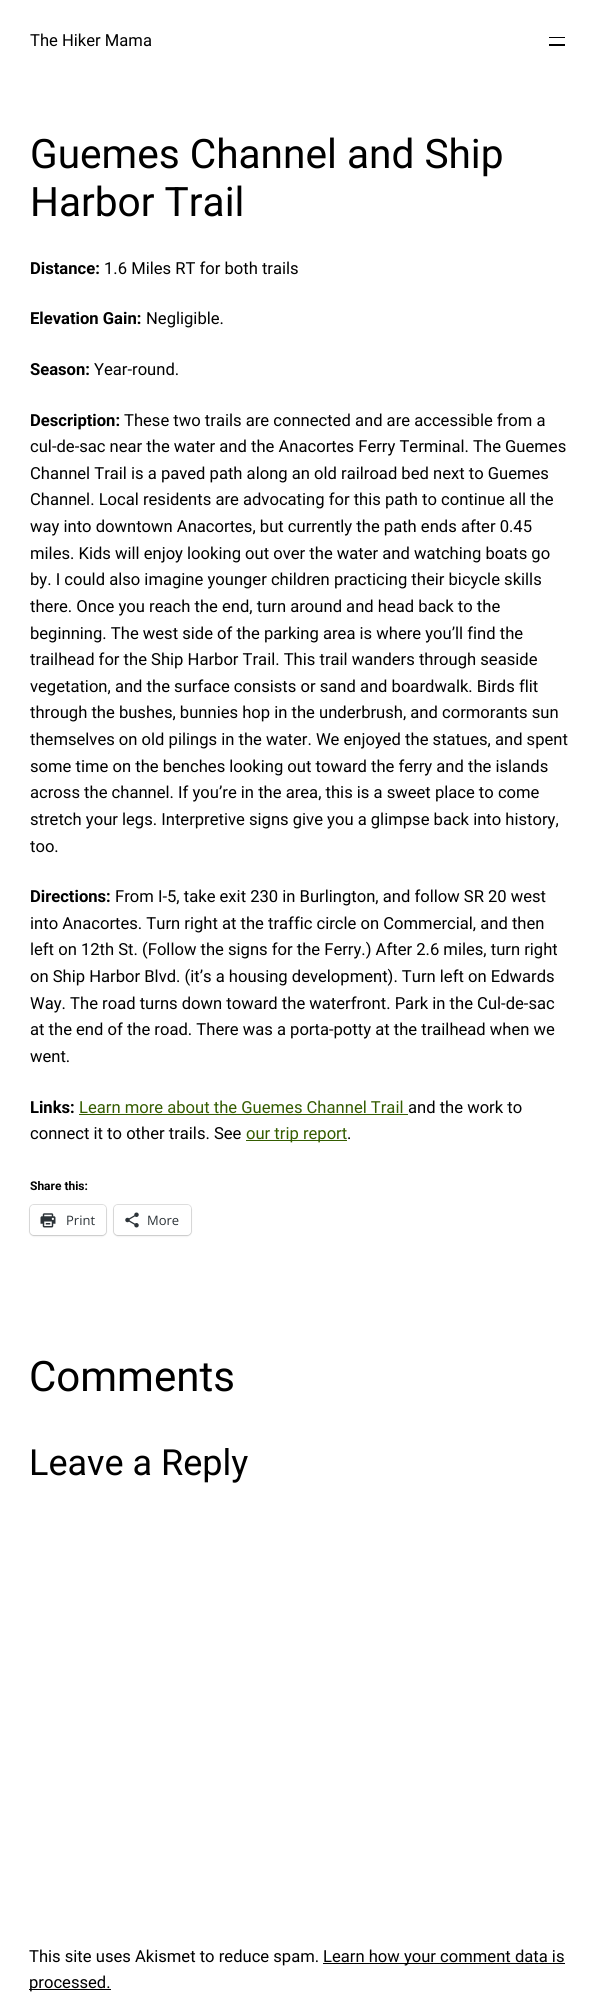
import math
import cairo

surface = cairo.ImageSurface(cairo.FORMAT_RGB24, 599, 1993)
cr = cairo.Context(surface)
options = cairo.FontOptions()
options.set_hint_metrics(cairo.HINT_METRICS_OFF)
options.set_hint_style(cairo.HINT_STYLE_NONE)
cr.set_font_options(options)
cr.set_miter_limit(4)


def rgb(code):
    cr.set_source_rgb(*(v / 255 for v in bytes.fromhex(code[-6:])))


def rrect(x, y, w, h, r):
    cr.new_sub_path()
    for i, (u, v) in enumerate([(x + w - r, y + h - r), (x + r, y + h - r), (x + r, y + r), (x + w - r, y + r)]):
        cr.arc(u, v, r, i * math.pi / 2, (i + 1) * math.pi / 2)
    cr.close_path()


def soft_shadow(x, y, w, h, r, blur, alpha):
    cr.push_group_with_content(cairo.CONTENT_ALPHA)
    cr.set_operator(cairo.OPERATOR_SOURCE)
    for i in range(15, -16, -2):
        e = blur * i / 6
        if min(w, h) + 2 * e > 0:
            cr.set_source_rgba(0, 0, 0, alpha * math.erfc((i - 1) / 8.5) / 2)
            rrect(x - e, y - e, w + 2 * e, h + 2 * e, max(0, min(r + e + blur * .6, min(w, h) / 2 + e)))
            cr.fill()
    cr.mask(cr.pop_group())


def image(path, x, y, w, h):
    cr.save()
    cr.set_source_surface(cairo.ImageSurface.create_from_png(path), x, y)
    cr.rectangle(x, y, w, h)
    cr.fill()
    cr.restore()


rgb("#ffffff")
cr.paint()
for x, y, w, h, color in [
    (549, 37, 16, 1, "#000000"),
    (549, 44, 16, 2, "#000000"),
    (79, 1114, 329, 1, "#345c00"),
    (246, 1140, 101, 1, "#345c00"),
]:
    rgb(color)
    cr.rectangle(x, y, w, h)
    cr.fill()
rrect(29.5, 1204.5, 77, 31, 4.5)
rgb("#e0e0e0")
cr.set_line_width(1)
cr.stroke()
rgb("#000000")
soft_shadow(30, 1206, 76, 30, 4, 1, 0.12)
rgb("#ffffff")
rrect(30, 1205, 76, 30, 4)
cr.fill()
image("img/1.png", 40, 1213, 16, 15)
rrect(113.5, 1204.5, 78, 31, 4.5)
rgb("#e0e0e0")
cr.stroke()
rgb("#000000")
soft_shadow(114, 1206, 77, 30, 4, 1, 0.12)
rgb("#ffffff")
rrect(114, 1205, 77, 30, 4)
cr.fill()
image("img/2.png", 125, 1212, 14, 16)
rgb("#000000")
cr.rectangle(323, 1963, 242, 1)
cr.fill()
cr.rectangle(29, 1989, 82, 1)
cr.fill()
cr.select_font_face("Roboto")
cr.set_font_size(16.6)
cr.move_to(30, 46)
cr.show_text("The Hiker Mama")
cr.set_font_size(40.6)
cr.move_to(30, 168)
cr.show_text("Guemes Channel and Ship")
cr.move_to(30, 216)
cr.show_text("Harbor Trail")
cr.select_font_face("Roboto", cairo.FONT_SLANT_NORMAL, cairo.FONT_WEIGHT_BOLD)
cr.set_font_size(16.6)
cr.move_to(30, 274)
cr.show_text("Distance:")
cr.select_font_face("Roboto")
cr.move_to(104, 274)
cr.show_text("1.6 Miles RT for both trails")
cr.select_font_face("Roboto", cairo.FONT_SLANT_NORMAL, cairo.FONT_WEIGHT_BOLD)
cr.move_to(30, 324)
cr.show_text("Elevation Gain:")
cr.select_font_face("Roboto")
cr.move_to(146, 324)
cr.show_text("Negligible.")
cr.select_font_face("Roboto", cairo.FONT_SLANT_NORMAL, cairo.FONT_WEIGHT_BOLD)
cr.move_to(30, 375)
cr.show_text("Season:")
cr.select_font_face("Roboto")
cr.move_to(94, 375)
cr.show_text("Year-round.")
cr.select_font_face("Roboto", cairo.FONT_SLANT_NORMAL, cairo.FONT_WEIGHT_BOLD)
cr.move_to(30, 426)
cr.show_text("Description:")
cr.select_font_face("Roboto")
for x, y, s in [
    (124, 426, "These two trails are connected and are accessible from a"),
    (30, 452, "cul-de-sac near the water and the Anacortes Ferry Terminal. The Guemes"),
    (30, 479, "Channel Trail is a paved path along an old railroad bed next to Guemes"),
    (30, 505, "Channel. Local residents are advocating for this path to continue all the"),
    (30, 532, "way into downtown Anacortes, but currently the path ends after 0.45"),
    (30, 559, "miles. Kids will enjoy looking out over the water and watching boats go"),
    (30, 585, "by. I could also imagine younger children practicing their bicycle skills"),
    (30, 612, "there. Once you reach the end, turn around and head back to the"),
    (30, 639, "beginning. The west side of the parking area is where you’ll find the"),
    (30, 665, "trailhead for the Ship Harbor Trail. This trail wanders through seaside"),
    (30, 692, "vegetation, and the surface consists or sand and boardwalk. Birds flit"),
    (30, 718, "through the bushes, bunnies hop in the underbrush, and cormorants sun"),
    (30, 745, "themselves on old pilings in the water. We enjoyed the statues, and spent"),
    (30, 772, "some time on the benches looking out toward the ferry and the islands"),
    (30, 798, "across the channel. If you’re in the area, this is a sweet place to come"),
    (30, 825, "stretch your legs. Interpretive signs give you a glimpse back into history,"),
    (30, 852, "too."),
]:
    cr.move_to(x, y)
    cr.show_text(s)
cr.select_font_face("Roboto", cairo.FONT_SLANT_NORMAL, cairo.FONT_WEIGHT_BOLD)
cr.move_to(30, 902)
cr.show_text("Directions:")
cr.select_font_face("Roboto")
for x, y, s in [
    (115, 902, "From I-5, take exit 230 in Burlington, and follow SR 20 west"),
    (30, 929, "into Anacortes. Turn right at the traffic circle on Commercial, and then"),
    (30, 955, "left on 12th St. (Follow the signs for the Ferry.) After 2.6 miles, turn right"),
    (30, 982, "on Ship Harbor Blvd. (it’s a housing development). Turn left on Edwards"),
    (30, 1009, "Way. The road turns down toward the waterfront. Park in the Cul-de-sac"),
    (30, 1035, "at the end of the road. There was a porta-potty at the trailhead when we"),
    (30, 1062, "went."),
]:
    cr.move_to(x, y)
    cr.show_text(s)
cr.select_font_face("Roboto", cairo.FONT_SLANT_NORMAL, cairo.FONT_WEIGHT_BOLD)
cr.move_to(30, 1113)
cr.show_text("Links:")
cr.select_font_face("Roboto")
rgb("#345c00")
cr.move_to(79, 1113)
cr.show_text("Learn more about the Guemes Channel Trail")
rgb("#000000")
cr.move_to(408, 1113)
cr.show_text("and the work to")
cr.move_to(30, 1139)
cr.show_text("connect it to other trails. See")
rgb("#345c00")
cr.move_to(246, 1139)
cr.show_text("our trip report")
rgb("#000000")
cr.move_to(347, 1139)
cr.show_text(".")
cr.select_font_face("Roboto", cairo.FONT_SLANT_NORMAL, cairo.FONT_WEIGHT_BOLD)
cr.set_font_size(12)
cr.move_to(30, 1190)
cr.show_text("Share this:")
cr.select_font_face("Open Sans")
cr.set_font_size(13)
rgb("#2c3338")
cr.move_to(66, 1225)
cr.show_text("Print")
cr.move_to(147, 1225)
cr.show_text("More")
cr.select_font_face("Roboto")
cr.set_font_size(42)
rgb("#000000")
cr.move_to(29, 1391)
cr.show_text("Comments")
cr.set_font_size(36)
cr.move_to(29, 1475)
cr.show_text("Leave a Reply")
cr.set_font_size(16.6)
for x, y, s in [
    (29, 1962, "This site uses Akismet to reduce spam."),
    (323, 1962, "Learn how your comment data is"),
    (29, 1988, "processed."),
]:
    cr.move_to(x, y)
    cr.show_text(s)
surface.write_to_png("page.png")
